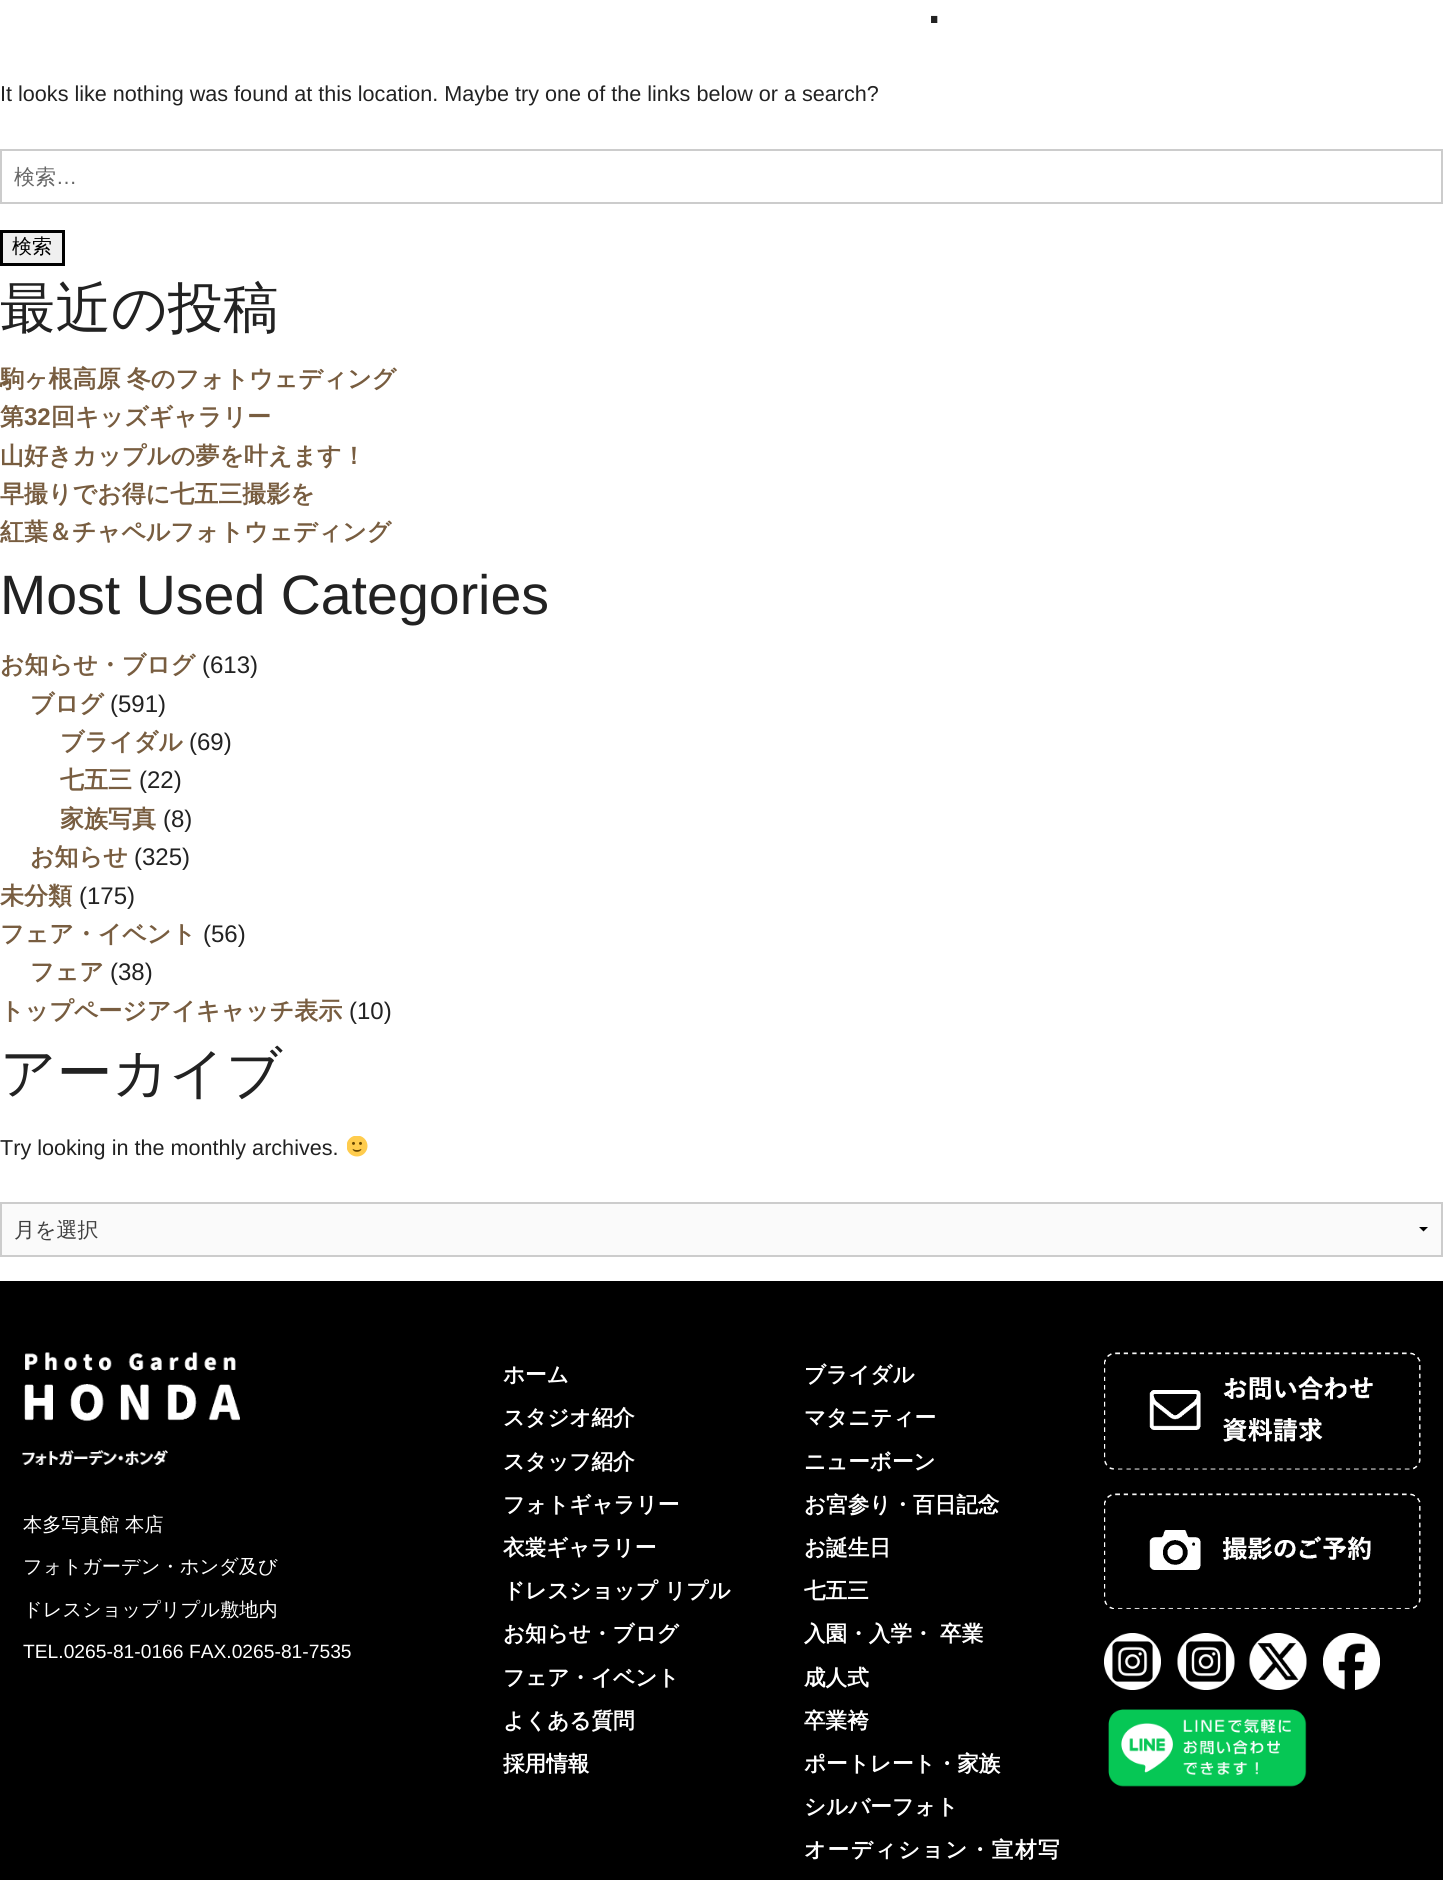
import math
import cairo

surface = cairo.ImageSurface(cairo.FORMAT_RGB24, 1443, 1880)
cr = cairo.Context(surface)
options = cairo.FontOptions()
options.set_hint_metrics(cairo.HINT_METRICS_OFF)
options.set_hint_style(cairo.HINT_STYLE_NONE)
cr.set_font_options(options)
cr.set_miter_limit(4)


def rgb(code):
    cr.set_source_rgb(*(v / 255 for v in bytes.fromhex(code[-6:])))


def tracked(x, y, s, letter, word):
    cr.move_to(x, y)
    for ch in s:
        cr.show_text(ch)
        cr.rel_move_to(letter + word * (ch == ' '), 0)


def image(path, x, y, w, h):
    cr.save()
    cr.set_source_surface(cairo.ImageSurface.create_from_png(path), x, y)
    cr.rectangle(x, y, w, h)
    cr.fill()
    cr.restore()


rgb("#ffffff")
cr.paint()
cr.rectangle(1, 150, 1441, 53)
rgb("#cccccc")
cr.stroke()
rgb("#efefef")
cr.rectangle(1.5, 231.5, 62, 33)
cr.fill_preserve()
rgb("#000000")
cr.set_line_width(3)
cr.stroke()
image("img/1.png", 347, 1136, 21, 21)
rgb("#fafafa")
cr.rectangle(2, 1204, 1439, 51)
cr.fill()
rgb("#000000")
cr.new_path()
cr.move_to(1428, 1227)
cr.line_to(1423.5, 1231.5)
cr.line_to(1419, 1227)
cr.close_path()
cr.fill()
cr.rectangle(1, 1203, 1441, 53)
rgb("#cccccc")
cr.set_line_width(2)
cr.stroke()
rgb("#000000")
cr.rectangle(0, 1281, 1443, 599)
cr.fill()
image("img/2.png", 22, 1352, 218, 113)
image("img/3.png", 1104, 1352, 317, 118)
image("img/4.png", 1104, 1493, 317, 116)
image("img/5.png", 1104, 1633, 57, 57)
image("img/6.png", 1177, 1633, 58, 57)
image("img/7.png", 1249, 1633, 58, 57)
image("img/8.png", 1323, 1633, 57, 57)
image("img/9.png", 1108, 1709, 199, 78)
cr.select_font_face("Liberation Sans")
cr.set_font_size(66)
rgb("#222222")
cr.move_to(925, 23)
cr.show_text(".")
cr.set_font_size(21.6)
cr.move_to(0, 101)
cr.show_text("It looks like nothing was found at this location. Maybe try one of the links below or a search?")
cr.select_font_face("WenQuanYi Zen Hei Medium")
cr.set_font_size(21)
rgb("#666666")
cr.move_to(14, 184)
cr.show_text("検索")
cr.select_font_face("Liberation Sans")
cr.move_to(56, 184)
cr.show_text("…")
cr.select_font_face("WenQuanYi Zen Hei Medium")
cr.set_font_size(20)
rgb("#000000")
cr.move_to(12, 253)
cr.show_text("検索")
cr.set_font_size(55.5)
rgb("#222222")
cr.move_to(0, 327)
cr.show_text("最近の投稿")
cr.select_font_face("WenQuanYi Zen Hei", cairo.FONT_SLANT_NORMAL, cairo.FONT_WEIGHT_BOLD)
cr.set_font_size(24)
rgb("#785d40")
tracked(0, 387, "駒ヶ根高原 冬のフォトウェディング", 0, -1)
cr.move_to(0, 425)
cr.show_text("第")
cr.select_font_face("Liberation Sans", cairo.FONT_SLANT_NORMAL, cairo.FONT_WEIGHT_BOLD)
cr.move_to(24, 425)
cr.show_text("32")
cr.select_font_face("WenQuanYi Zen Hei", cairo.FONT_SLANT_NORMAL, cairo.FONT_WEIGHT_BOLD)
for x, y, s in [
    (51, 425, "回キッズギャラリー"),
    (0, 464, "山好きカップルの夢を叶えます！"),
    (0, 502, "早撮りでお得に七五三撮影を"),
    (0, 540, "紅葉＆チャペルフォトウェディング"),
]:
    cr.move_to(x, y)
    cr.show_text(s)
cr.select_font_face("Liberation Sans")
cr.set_font_size(55.5)
rgb("#222222")
cr.move_to(0, 614)
cr.show_text("Most Used Categories")
cr.select_font_face("WenQuanYi Zen Hei", cairo.FONT_SLANT_NORMAL, cairo.FONT_WEIGHT_BOLD)
cr.set_font_size(24)
rgb("#785d40")
cr.move_to(0, 673)
cr.show_text("お知らせ・ブログ")
cr.select_font_face("Liberation Sans")
rgb("#222222")
cr.move_to(202, 673)
cr.show_text("(613)")
cr.select_font_face("WenQuanYi Zen Hei", cairo.FONT_SLANT_NORMAL, cairo.FONT_WEIGHT_BOLD)
rgb("#785d40")
cr.move_to(30, 712)
cr.show_text("ブログ")
cr.select_font_face("Liberation Sans")
rgb("#222222")
cr.move_to(110, 712)
cr.show_text("(591)")
cr.select_font_face("WenQuanYi Zen Hei", cairo.FONT_SLANT_NORMAL, cairo.FONT_WEIGHT_BOLD)
rgb("#785d40")
cr.move_to(60, 750)
cr.show_text("ブライダル")
cr.select_font_face("Liberation Sans")
rgb("#222222")
cr.move_to(189, 750)
cr.show_text("(69)")
cr.select_font_face("WenQuanYi Zen Hei", cairo.FONT_SLANT_NORMAL, cairo.FONT_WEIGHT_BOLD)
rgb("#785d40")
cr.move_to(60, 788)
cr.show_text("七五三")
cr.select_font_face("Liberation Sans")
rgb("#222222")
cr.move_to(139, 788)
cr.show_text("(22)")
cr.select_font_face("WenQuanYi Zen Hei", cairo.FONT_SLANT_NORMAL, cairo.FONT_WEIGHT_BOLD)
rgb("#785d40")
cr.move_to(60, 827)
cr.show_text("家族写真")
cr.select_font_face("Liberation Sans")
rgb("#222222")
cr.move_to(163, 827)
cr.show_text("(8)")
cr.select_font_face("WenQuanYi Zen Hei", cairo.FONT_SLANT_NORMAL, cairo.FONT_WEIGHT_BOLD)
rgb("#785d40")
cr.move_to(30, 865)
cr.show_text("お知らせ")
cr.select_font_face("Liberation Sans")
rgb("#222222")
cr.move_to(134, 865)
cr.show_text("(325)")
cr.select_font_face("WenQuanYi Zen Hei", cairo.FONT_SLANT_NORMAL, cairo.FONT_WEIGHT_BOLD)
rgb("#785d40")
cr.move_to(0, 904)
cr.show_text("未分類")
cr.select_font_face("Liberation Sans")
rgb("#222222")
cr.move_to(79, 904)
cr.show_text("(175)")
cr.select_font_face("WenQuanYi Zen Hei", cairo.FONT_SLANT_NORMAL, cairo.FONT_WEIGHT_BOLD)
rgb("#785d40")
cr.move_to(0, 942)
cr.show_text("フェア・イベント")
cr.select_font_face("Liberation Sans")
rgb("#222222")
cr.move_to(203, 942)
cr.show_text("(56)")
cr.select_font_face("WenQuanYi Zen Hei", cairo.FONT_SLANT_NORMAL, cairo.FONT_WEIGHT_BOLD)
rgb("#785d40")
cr.move_to(30, 980)
cr.show_text("フェア")
cr.select_font_face("Liberation Sans")
rgb("#222222")
cr.move_to(110, 980)
cr.show_text("(38)")
cr.select_font_face("WenQuanYi Zen Hei", cairo.FONT_SLANT_NORMAL, cairo.FONT_WEIGHT_BOLD)
rgb("#785d40")
cr.move_to(0, 1019)
cr.show_text("トップページアイキャッチ表示")
cr.select_font_face("Liberation Sans")
rgb("#222222")
cr.move_to(349, 1019)
cr.show_text("(10)")
cr.select_font_face("WenQuanYi Zen Hei Medium")
cr.set_font_size(55.5)
cr.move_to(0, 1092)
cr.show_text("アーカイブ")
cr.select_font_face("Liberation Sans")
cr.set_font_size(21.6)
cr.move_to(0, 1155)
cr.show_text("Try looking in the monthly archives.")
cr.select_font_face("WenQuanYi Zen Hei Medium")
cr.set_font_size(21)
rgb("#3f3f3f")
cr.move_to(14, 1237)
cr.show_text("月を選択")
cr.set_font_size(19.25)
rgb("#ffffff")
for x, y, s in [
    (23, 1531, "本多写真館 本店"),
    (23, 1573, "フォトガーデン・ホンダ及び"),
    (23, 1616, "ドレスショップリプル敷地内"),
]:
    cr.move_to(x, y)
    cr.show_text(s)
cr.select_font_face("Liberation Sans")
cr.move_to(23, 1658)
cr.show_text("TEL.0265-81-0166 FAX.0265-81-7535")
cr.select_font_face("WenQuanYi Zen Hei", cairo.FONT_SLANT_NORMAL, cairo.FONT_WEIGHT_BOLD)
cr.set_font_size(21.6)
for x, y, s in [
    (503, 1382, "ホーム"),
    (503, 1425, "スタジオ紹介"),
    (503, 1469, "スタッフ紹介"),
    (503, 1512, "フォトギャラリー"),
    (503, 1555, "衣裳ギャラリー"),
    (503, 1598, "ドレスショップ リプル"),
    (503, 1641, "お知らせ・ブログ"),
    (503, 1685, "フェア・イベント"),
    (503, 1728, "よくある質問"),
    (503, 1771, "採用情報"),
    (804, 1382, "ブライダル"),
    (804, 1425, "マタニティー"),
    (804, 1469, "ニューボーン"),
    (804, 1512, "お宮参り・百日記念"),
    (804, 1555, "お誕生日"),
    (804, 1598, "七五三"),
    (804, 1641, "入園・入学・ 卒業"),
    (804, 1685, "成人式"),
    (804, 1728, "卒業袴"),
    (804, 1771, "ポートレート・家族"),
    (804, 1814, "シルバーフォト"),
]:
    cr.move_to(x, y)
    cr.show_text(s)
tracked(804, 1857, "オーディション・宣材写", 1.5, 0)
surface.write_to_png("page.png")
